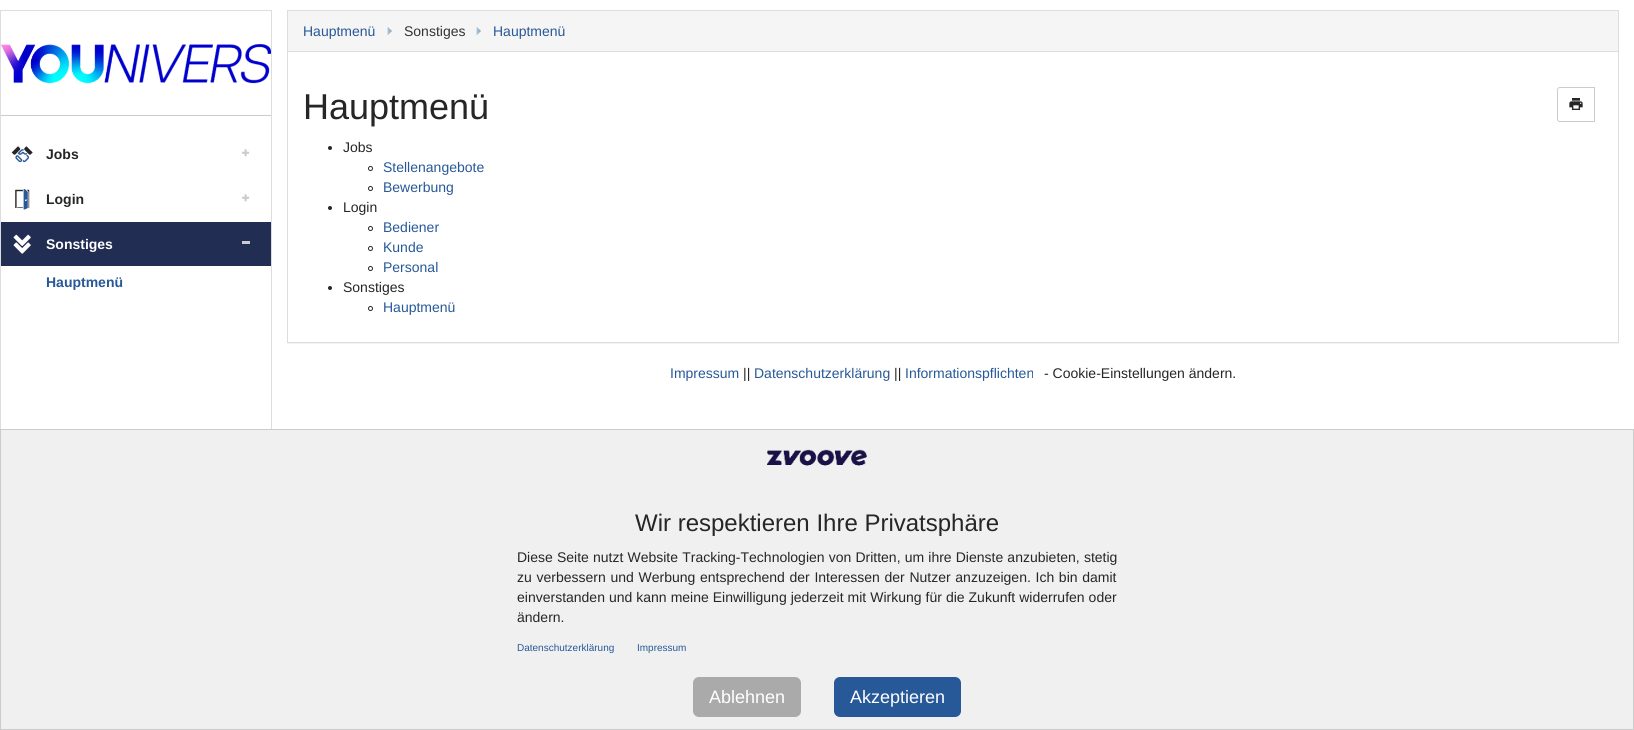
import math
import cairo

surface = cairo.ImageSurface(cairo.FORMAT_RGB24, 1634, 730)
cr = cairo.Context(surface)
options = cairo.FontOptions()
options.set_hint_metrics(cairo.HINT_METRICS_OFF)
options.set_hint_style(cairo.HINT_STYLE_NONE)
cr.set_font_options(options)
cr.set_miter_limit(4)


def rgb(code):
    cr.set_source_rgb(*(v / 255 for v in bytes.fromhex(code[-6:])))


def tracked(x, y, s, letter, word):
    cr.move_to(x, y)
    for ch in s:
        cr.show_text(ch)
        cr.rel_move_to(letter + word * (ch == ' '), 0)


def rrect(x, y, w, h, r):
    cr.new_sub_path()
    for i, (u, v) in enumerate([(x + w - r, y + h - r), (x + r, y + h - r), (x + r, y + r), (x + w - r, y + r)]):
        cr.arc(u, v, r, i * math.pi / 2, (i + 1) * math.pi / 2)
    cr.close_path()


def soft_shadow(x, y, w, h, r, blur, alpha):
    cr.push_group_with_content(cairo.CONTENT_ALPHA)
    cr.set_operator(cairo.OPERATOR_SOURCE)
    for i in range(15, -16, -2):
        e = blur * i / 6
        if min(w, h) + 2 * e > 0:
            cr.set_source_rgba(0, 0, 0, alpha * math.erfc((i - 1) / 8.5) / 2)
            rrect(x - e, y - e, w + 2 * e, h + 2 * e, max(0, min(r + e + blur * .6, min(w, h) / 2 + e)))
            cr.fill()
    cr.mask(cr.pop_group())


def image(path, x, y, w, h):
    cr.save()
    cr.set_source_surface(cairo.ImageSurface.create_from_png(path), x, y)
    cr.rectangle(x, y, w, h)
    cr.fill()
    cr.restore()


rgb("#ffffff")
cr.paint()
cr.rectangle(0.5, 10.5, 271, 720)
rgb("#dddddd")
cr.set_line_width(1)
cr.stroke()
image("img/1.png", 1, 44, 270, 40)
rgb("#cccccc")
cr.rectangle(1, 115, 270, 1)
cr.fill()
image("img/2.png", 11, 146, 22, 9)
image("img/3.png", 15, 149, 14, 14)
image("img/4.png", 242, 149, 8, 8)
image("img/5.png", 15, 189, 15, 19)
image("img/6.png", 23, 189, 5, 21)
image("img/4.png", 242, 194, 8, 8)
rgb("#212d53")
cr.rectangle(1, 222, 270, 44)
cr.fill()
image("img/7.png", 13, 234, 18, 20)
rgb("#cccccc")
cr.rectangle(242, 241, 8, 3)
cr.fill()
cr.save()
cr.rectangle(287, 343, 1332, 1)
cr.clip()
rgb("#000000")
soft_shadow(287, 11, 1332, 333, 0, 0.5, 0.05)
cr.restore()
cr.rectangle(287.5, 10.5, 1331, 332)
rgb("#dddddd")
cr.stroke()
rgb("#f5f5f5")
cr.rectangle(288, 11, 1330, 40)
cr.fill()
rgb("#dddddd")
cr.rectangle(288, 51, 1330, 1)
cr.fill()
image("img/8.png", 387, 27, 5, 8)
image("img/8.png", 476, 27, 5, 8)
cr.new_path()
cr.move_to(1560, 87.5)
cr.line_to(1594.5, 87.5)
cr.line_to(1594.5, 121.5)
cr.line_to(1560, 121.5)
cr.curve_to(1558.5, 121.5, 1557.5, 120.5, 1557.5, 119)
cr.line_to(1557.5, 90)
cr.curve_to(1557.5, 88.5, 1558.5, 87.5, 1560, 87.5)
cr.close_path()
rgb("#cccccc")
cr.stroke()
image("img/9.png", 1569, 98, 14, 12)
rgb("#262626")
cr.arc(330, 148, 2, 0, 2 * math.pi)
cr.fill()
cr.arc(370.5, 168.5, 2, 0, 2 * math.pi)
cr.stroke()
cr.arc(370.5, 188.5, 2, 0, 2 * math.pi)
cr.stroke()
cr.arc(330, 208, 2, 0, 2 * math.pi)
cr.fill()
cr.arc(370.5, 228.5, 2, 0, 2 * math.pi)
cr.stroke()
cr.arc(370.5, 248.5, 2, 0, 2 * math.pi)
cr.stroke()
cr.arc(370.5, 268.5, 2, 0, 2 * math.pi)
cr.stroke()
cr.arc(330, 288, 2, 0, 2 * math.pi)
cr.fill()
cr.arc(370.5, 308.5, 2, 0, 2 * math.pi)
cr.stroke()
rgb("#f0f0f0")
cr.rectangle(0.5, 429.5, 1633, 300)
cr.fill_preserve()
rgb("#cccccc")
cr.stroke()
image("img/10.png", 767, 449, 100, 17)
rgb("#aaaaaa")
rrect(693, 677, 108, 40, 6)
cr.fill()
rgb("#275898")
rrect(834, 677, 127, 40, 6)
cr.fill()
cr.select_font_face("Liberation Sans", cairo.FONT_SLANT_NORMAL, cairo.FONT_WEIGHT_BOLD)
cr.set_font_size(14)
rgb("#262626")
cr.move_to(46, 159)
cr.show_text("Jobs")
cr.move_to(46, 204)
cr.show_text("Login")
rgb("#ffffff")
cr.move_to(46, 249)
cr.show_text("Sonstiges")
rgb("#275898")
cr.move_to(46, 287)
cr.show_text("Hauptmenü")
cr.select_font_face("Liberation Sans")
cr.move_to(303, 36)
cr.show_text("Hauptmenü")
rgb("#333333")
cr.move_to(404, 36)
cr.show_text("Sonstiges")
rgb("#275898")
cr.move_to(493, 36)
cr.show_text("Hauptmenü")
cr.set_font_size(36)
rgb("#262626")
cr.move_to(303, 119)
cr.show_text("Hauptmenü")
cr.set_font_size(14)
cr.move_to(343, 152)
cr.show_text("Jobs")
rgb("#275898")
cr.move_to(383, 172)
cr.show_text("Stellenangebote")
cr.move_to(383, 192)
cr.show_text("Bewerbung")
rgb("#262626")
cr.move_to(343, 212)
cr.show_text("Login")
rgb("#275898")
for x, y, s in [
    (383, 232, "Bediener"),
    (383, 252, "Kunde"),
    (383, 272, "Personal"),
]:
    cr.move_to(x, y)
    cr.show_text(s)
rgb("#262626")
cr.move_to(343, 292)
cr.show_text("Sonstiges")
rgb("#275898")
cr.move_to(383, 312)
cr.show_text("Hauptmenü")
cr.move_to(670, 378)
cr.show_text("Impressum")
rgb("#262626")
cr.move_to(743, 378)
cr.show_text("||")
rgb("#275898")
cr.move_to(754, 378)
cr.show_text("Datenschutzerklärung")
rgb("#262626")
cr.move_to(894, 378)
cr.show_text("||")
rgb("#275898")
cr.move_to(905, 378)
cr.show_text("Informationspflichten")
rgb("#262626")
cr.move_to(1044, 378)
cr.show_text("- Cookie-Einstellungen ändern.")
cr.set_font_size(24)
cr.move_to(635, 531)
cr.show_text("Wir respektieren Ihre Privatsphäre")
cr.set_font_size(14)
tracked(517, 562, "Diese Seite nutzt Website Tracking-Technologien von Dritten, um ihre Dienste anzubieten, stetig", 0, 0.25)
tracked(517, 582, "zu verbessern und Werbung entsprechend der Interessen der Nutzer anzuzeigen. Ich bin damit", 0, 0.8)
tracked(517, 602, "einverstanden und kann meine Einwilligung jederzeit mit Wirkung für die Zukunft widerrufen oder", 0, 0.1)
cr.move_to(517, 622)
cr.show_text("ändern.")
cr.set_font_size(10)
rgb("#275898")
cr.move_to(517, 651)
cr.show_text("Datenschutzerklärung")
cr.move_to(637, 651)
cr.show_text("Impressum")
cr.set_font_size(18)
rgb("#ffffff")
cr.move_to(709, 703)
cr.show_text("Ablehnen")
cr.move_to(850, 703)
cr.show_text("Akzeptieren")
surface.write_to_png("page.png")
